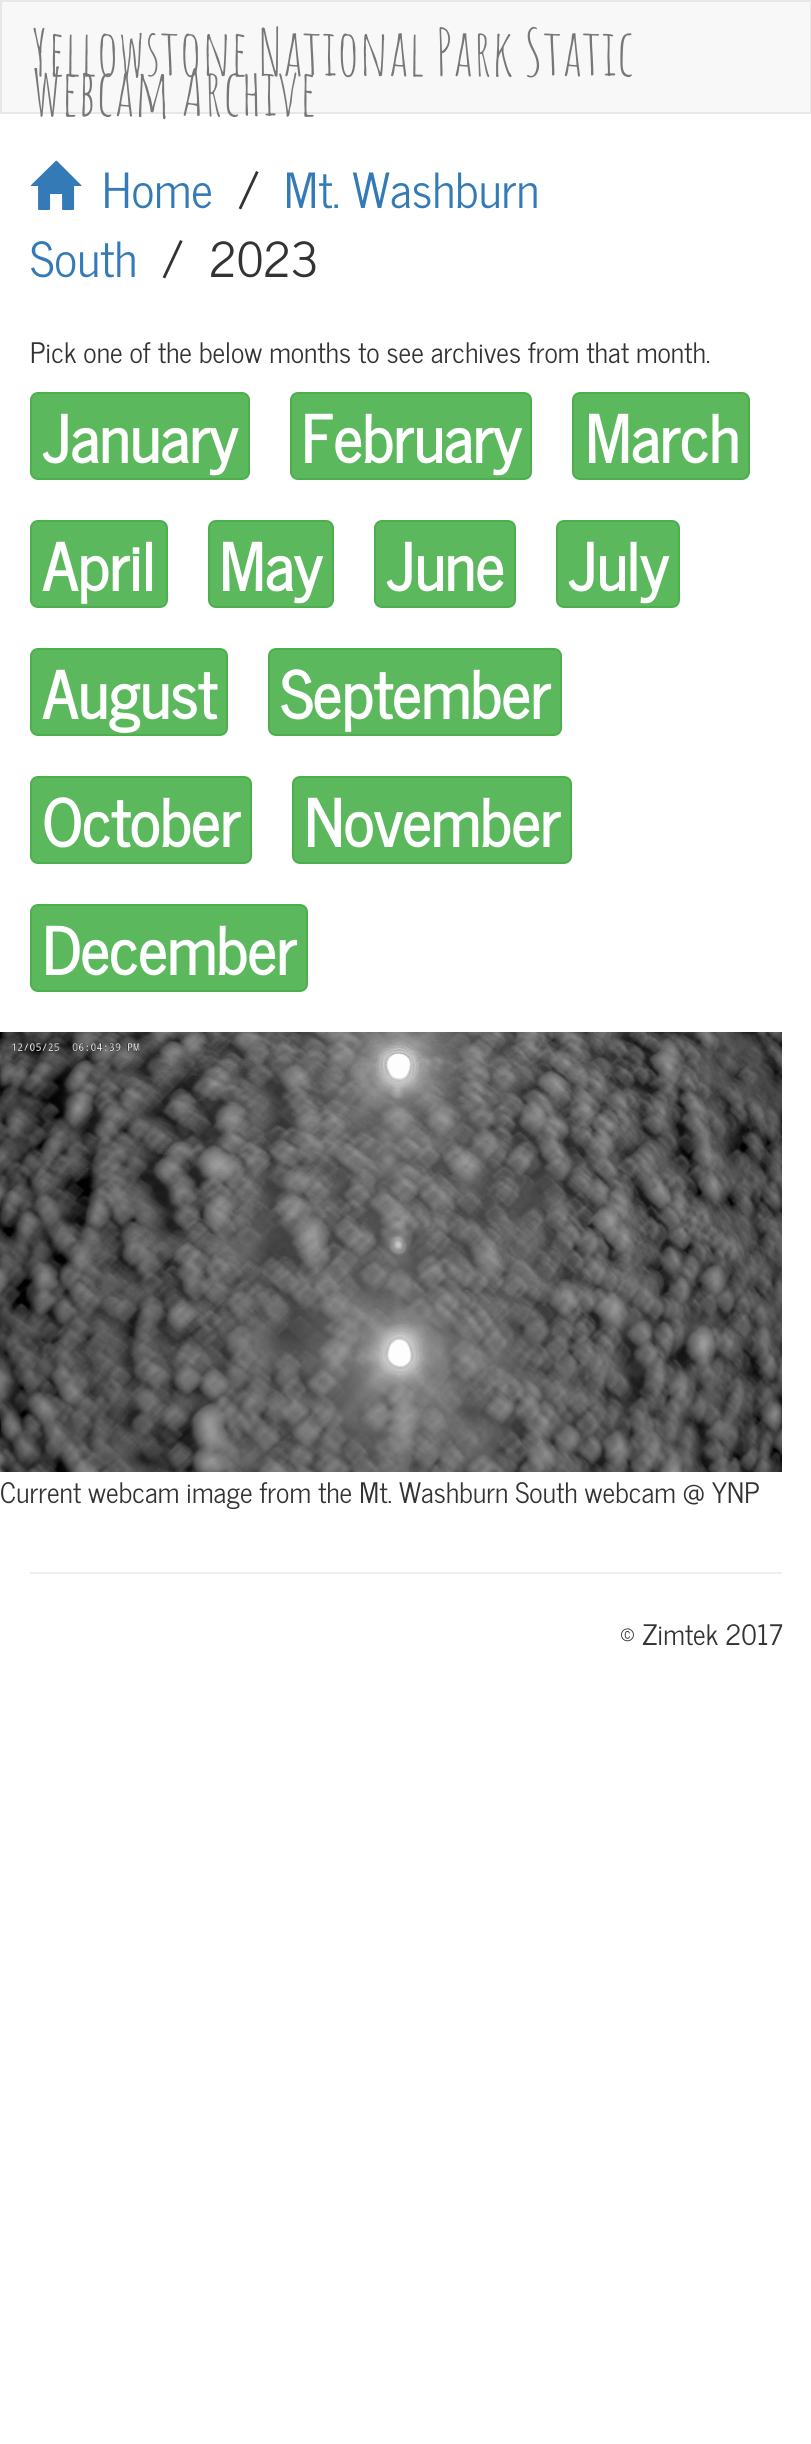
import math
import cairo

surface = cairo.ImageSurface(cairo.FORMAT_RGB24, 811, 2444)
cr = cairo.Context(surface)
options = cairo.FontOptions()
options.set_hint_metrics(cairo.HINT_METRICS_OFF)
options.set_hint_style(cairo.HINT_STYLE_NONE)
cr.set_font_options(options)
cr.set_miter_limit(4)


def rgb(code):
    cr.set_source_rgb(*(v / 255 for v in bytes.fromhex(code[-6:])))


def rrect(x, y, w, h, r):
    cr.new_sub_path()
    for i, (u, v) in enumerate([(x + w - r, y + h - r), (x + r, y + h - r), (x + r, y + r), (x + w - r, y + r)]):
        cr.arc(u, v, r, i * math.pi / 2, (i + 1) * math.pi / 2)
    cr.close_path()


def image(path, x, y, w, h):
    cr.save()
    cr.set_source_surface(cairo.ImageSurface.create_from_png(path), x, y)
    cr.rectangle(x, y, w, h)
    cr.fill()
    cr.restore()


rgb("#ffffff")
cr.paint()
rgb("#f8f8f8")
cr.rectangle(1, 1, 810, 112)
cr.fill_preserve()
rgb("#e7e7e7")
cr.stroke()
image("img/1.png", 30, 160, 52, 50)
rgb("#5cb85c")
rrect(31, 393, 218, 86, 7)
cr.fill_preserve()
rgb("#4cae4c")
cr.stroke()
rgb("#5cb85c")
rrect(291, 393, 240, 86, 7)
cr.fill_preserve()
rgb("#4cae4c")
cr.stroke()
rgb("#5cb85c")
rrect(573, 393, 176, 86, 7)
cr.fill_preserve()
rgb("#4cae4c")
cr.stroke()
rgb("#5cb85c")
rrect(31, 521, 136, 86, 7)
cr.fill_preserve()
rgb("#4cae4c")
cr.stroke()
rgb("#5cb85c")
rrect(209, 521, 124, 86, 7)
cr.fill_preserve()
rgb("#4cae4c")
cr.stroke()
rgb("#5cb85c")
rrect(375, 521, 140, 86, 7)
cr.fill_preserve()
rgb("#4cae4c")
cr.stroke()
rgb("#5cb85c")
rrect(557, 521, 122, 86, 7)
cr.fill_preserve()
rgb("#4cae4c")
cr.stroke()
rgb("#5cb85c")
rrect(31, 649, 196, 86, 7)
cr.fill_preserve()
rgb("#4cae4c")
cr.stroke()
rgb("#5cb85c")
rrect(269, 649, 292, 86, 7)
cr.fill_preserve()
rgb("#4cae4c")
cr.stroke()
rgb("#5cb85c")
rrect(31, 777, 220, 86, 7)
cr.fill_preserve()
rgb("#4cae4c")
cr.stroke()
rgb("#5cb85c")
rrect(293, 777, 278, 86, 7)
cr.fill_preserve()
rgb("#4cae4c")
cr.stroke()
rgb("#5cb85c")
rrect(31, 905, 276, 86, 7)
cr.fill_preserve()
rgb("#4cae4c")
cr.stroke()
image("img/2.png", 0, 1032, 782, 440)
rgb("#eeeeee")
cr.rectangle(30, 1572, 752, 2)
cr.fill()
cr.select_font_face("Amatic SC")
cr.set_font_size(64)
rgb("#777777")
cr.move_to(32, 76)
cr.show_text("Yellowstone National Park Static")
cr.move_to(32, 116)
cr.show_text("Webcam Archive")
cr.select_font_face("News Cycle")
cr.set_font_size(48)
rgb("#337ab7")
cr.move_to(102, 208)
cr.show_text("Home")
rgb("#333333")
cr.move_to(237, 208)
cr.show_text("/")
rgb("#337ab7")
cr.move_to(284, 208)
cr.show_text("Mt. Washburn")
cr.move_to(30, 277)
cr.show_text("South")
rgb("#333333")
cr.move_to(161, 277)
cr.show_text("/")
cr.move_to(209, 277)
cr.show_text("2023")
cr.set_font_size(28)
cr.move_to(30, 363)
cr.show_text("Pick one of the below months to see archives from that month.")
cr.select_font_face("News Cycle", cairo.FONT_SLANT_NORMAL, cairo.FONT_WEIGHT_BOLD)
cr.set_font_size(64)
rgb("#ffffff")
for x, y, s in [
    (42, 463, "January"),
    (301, 463, "February"),
    (585, 463, "March"),
    (42, 591, "April"),
    (219, 591, "May"),
    (386, 591, "June"),
    (568, 591, "July"),
    (42, 719, "August"),
    (280, 719, "September"),
    (42, 847, "October"),
    (304, 847, "November"),
    (42, 975, "December"),
]:
    cr.move_to(x, y)
    cr.show_text(s)
cr.select_font_face("News Cycle")
cr.set_font_size(28)
rgb("#333333")
cr.move_to(0, 1503)
cr.show_text("Current webcam image from the Mt. Washburn South webcam @ YNP")
cr.move_to(620, 1645)
cr.show_text("© Zimtek 2017")
surface.write_to_png("page.png")
